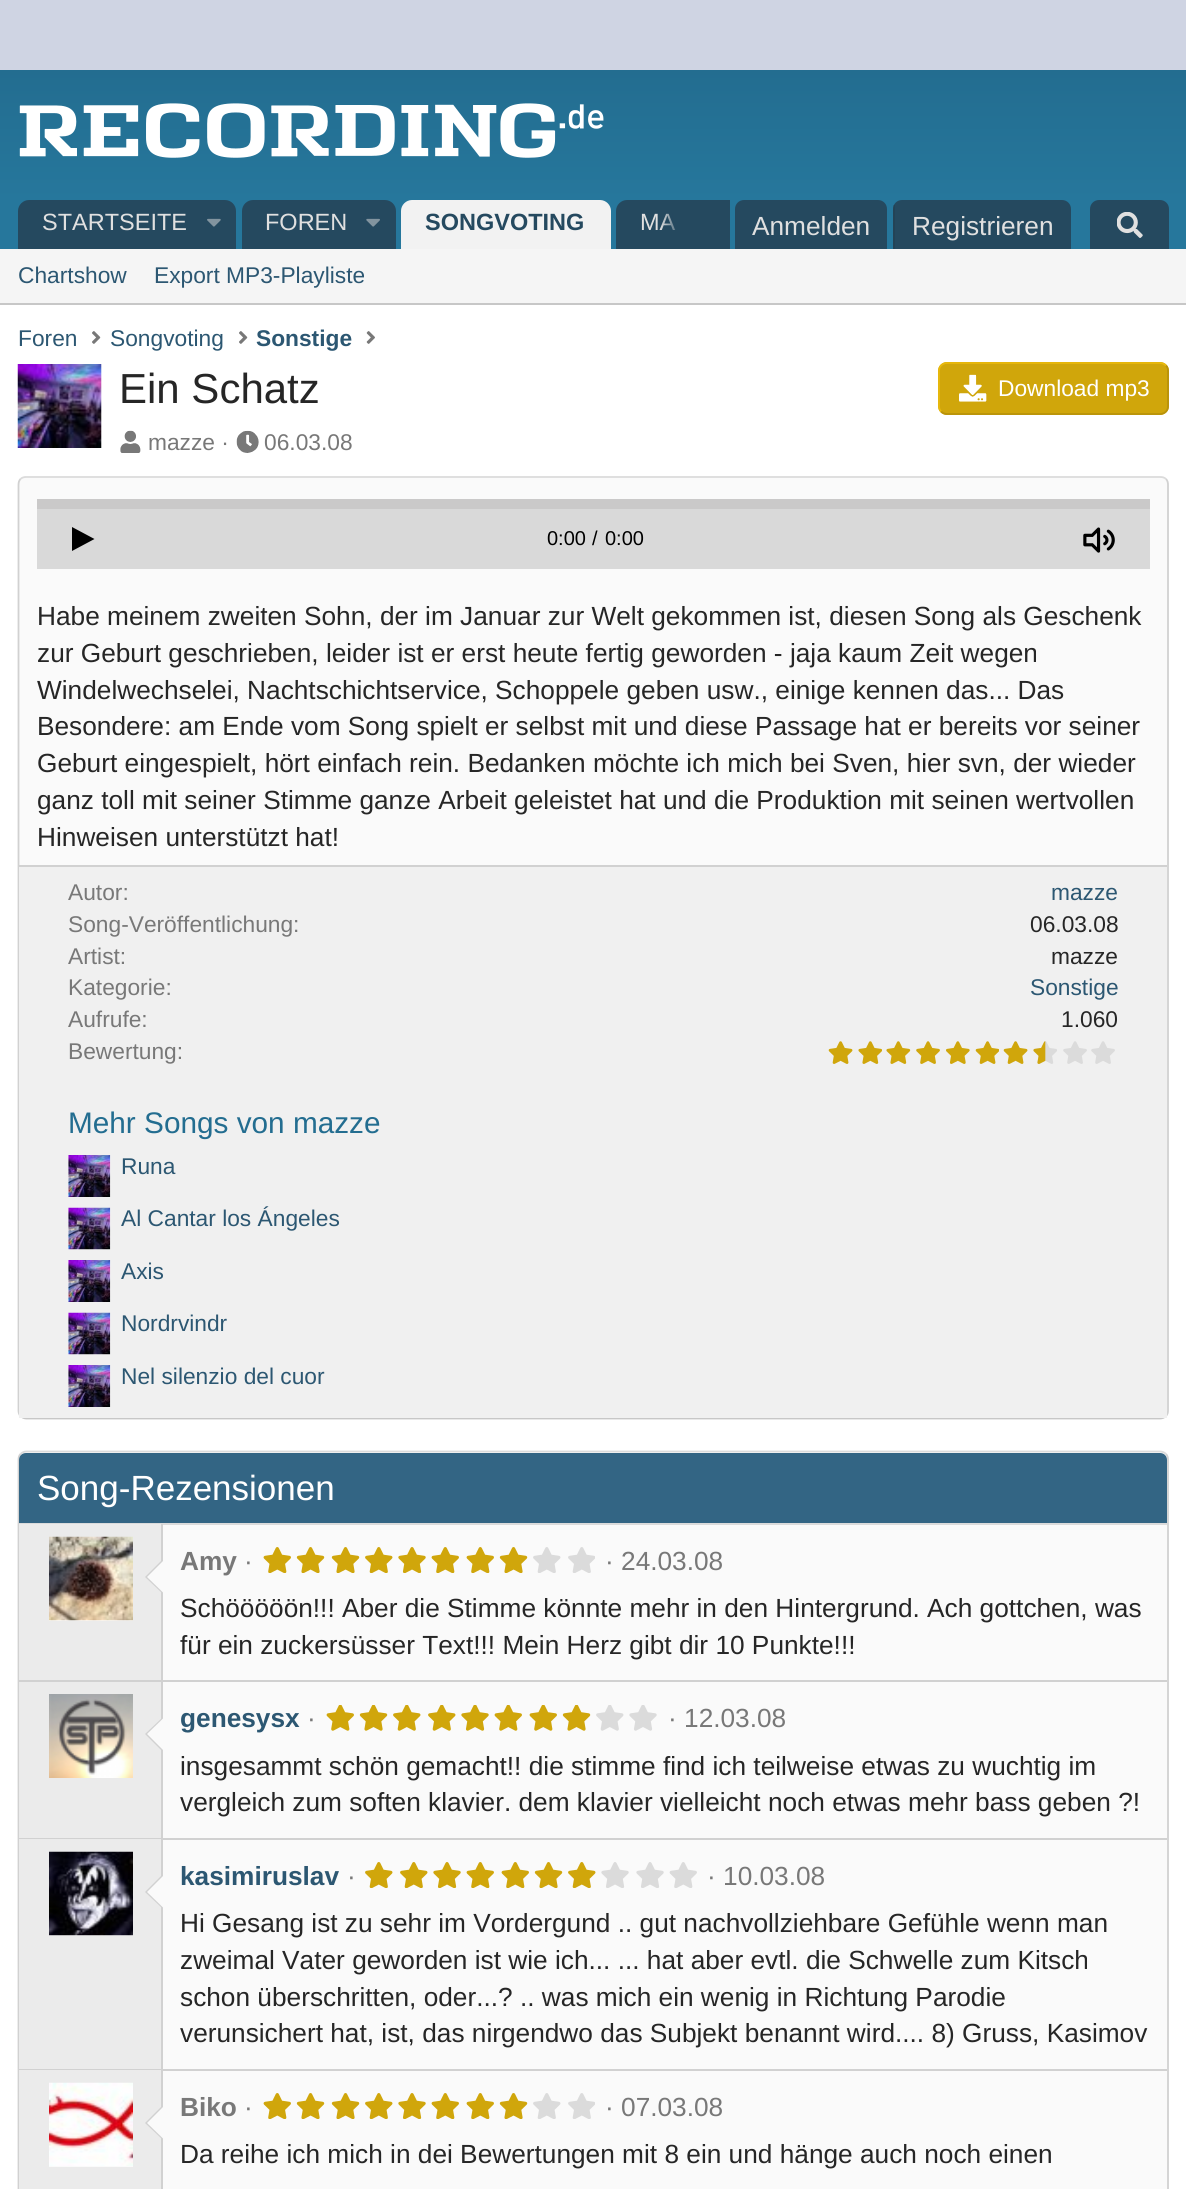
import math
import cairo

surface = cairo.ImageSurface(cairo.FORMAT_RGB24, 1186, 2189)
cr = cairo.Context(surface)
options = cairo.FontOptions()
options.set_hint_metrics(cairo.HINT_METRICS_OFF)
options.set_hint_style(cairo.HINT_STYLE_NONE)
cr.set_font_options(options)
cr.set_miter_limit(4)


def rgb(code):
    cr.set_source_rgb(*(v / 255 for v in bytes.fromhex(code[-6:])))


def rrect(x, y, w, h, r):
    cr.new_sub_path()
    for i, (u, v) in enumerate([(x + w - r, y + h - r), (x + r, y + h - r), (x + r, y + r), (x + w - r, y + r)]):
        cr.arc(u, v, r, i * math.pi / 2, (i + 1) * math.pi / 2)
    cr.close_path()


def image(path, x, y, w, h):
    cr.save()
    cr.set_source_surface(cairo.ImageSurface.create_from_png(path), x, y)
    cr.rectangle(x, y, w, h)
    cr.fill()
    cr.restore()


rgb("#cfd4e3")
cr.paint()
gradient = cairo.LinearGradient(593, 70, 593, 200)
gradient.add_color_stop_rgba(0, 0.137, 0.427, 0.565, 1)
gradient.add_color_stop_rgba(1, 0.149, 0.467, 0.612, 1)
cr.set_source(gradient)
cr.rectangle(0, 70, 1186, 130)
cr.fill()
image("img/1.png", 19, 103, 585, 55)
rgb("#26779c")
cr.rectangle(0, 200, 1186, 49)
cr.fill()
rgb("#25495f")
cr.new_path()
cr.move_to(29, 200)
cr.line_to(225, 200)
cr.curve_to(231, 200, 236, 205, 236, 211)
cr.line_to(236, 249)
cr.line_to(18, 249)
cr.line_to(18, 211)
cr.curve_to(18, 205, 23, 200, 29, 200)
cr.close_path()
cr.fill()
image("img/2.png", 207, 218, 14, 9)
cr.new_path()
cr.move_to(253, 200)
cr.line_to(385, 200)
cr.curve_to(391, 200, 396, 205, 396, 211)
cr.line_to(396, 249)
cr.line_to(242, 249)
cr.line_to(242, 211)
cr.curve_to(242, 205, 247, 200, 253, 200)
cr.close_path()
cr.fill()
image("img/3.png", 366, 218, 14, 9)
rgb("#f2f2f2")
cr.new_path()
cr.move_to(412, 200)
cr.line_to(600, 200)
cr.curve_to(606, 200, 611, 205, 611, 211)
cr.line_to(611, 249)
cr.line_to(401, 249)
cr.line_to(401, 211)
cr.curve_to(401, 205, 406, 200, 412, 200)
cr.close_path()
cr.fill()
rgb("#25495f")
cr.new_path()
cr.move_to(627, 200)
cr.line_to(730, 200)
cr.line_to(730, 249)
cr.line_to(616, 249)
cr.line_to(616, 211)
cr.curve_to(616, 205, 621, 200, 627, 200)
cr.close_path()
cr.fill()
cr.new_path()
cr.move_to(744, 200)
cr.line_to(878, 200)
cr.curve_to(883, 200, 887, 204, 887, 209)
cr.line_to(887, 249)
cr.line_to(735, 249)
cr.line_to(735, 209)
cr.curve_to(735, 204, 739, 200, 744, 200)
cr.close_path()
cr.fill()
cr.new_path()
cr.move_to(902, 200)
cr.line_to(1062, 200)
cr.curve_to(1067, 200, 1071, 204, 1071, 209)
cr.line_to(1071, 249)
cr.line_to(893, 249)
cr.line_to(893, 209)
cr.curve_to(893, 204, 897, 200, 902, 200)
cr.close_path()
cr.fill()
cr.set_source_rgba(0.149, 0.149, 0.149, 0.15)
cr.rectangle(893, 205, 2, 44)
cr.fill()
rgb("#25495f")
cr.new_path()
cr.move_to(1099, 200)
cr.line_to(1160, 200)
cr.curve_to(1165, 200, 1169, 204, 1169, 209)
cr.line_to(1169, 249)
cr.line_to(1090, 249)
cr.line_to(1090, 209)
cr.curve_to(1090, 204, 1094, 200, 1099, 200)
cr.close_path()
cr.fill()
image("img/4.png", 1117, 212, 26, 26)
for x, y, w, h, color in [
    (0, 249, 1186, 54, "#f5f5f5"),
    (0, 303, 1186, 2, "#c7c7c7"),
    (0, 305, 1186, 1884, "#ffffff"),
]:
    rgb(color)
    cr.rectangle(x, y, w, h)
    cr.fill()
image("img/5.png", 92, 331, 9, 13)
image("img/5.png", 239, 331, 9, 13)
image("img/6.png", 366, 331, 9, 13)
rgb("#fafafa")
cr.rectangle(101, 364, 1, 84)
cr.fill()
image("img/7.png", 17, 364, 85, 84)
rgb("#d0a60b")
rrect(938, 362, 231, 53, 9)
cr.fill()
cr.new_path()
cr.move_to(1166, 365.5)
cr.curve_to(1167.5, 367, 1168, 369, 1168, 371)
cr.line_to(1168, 406)
cr.curve_to(1168, 408, 1167.5, 410, 1166, 411.5)
cr.curve_to(1164.5, 413, 1162.5, 414, 1160, 414)
cr.line_to(947, 414)
cr.curve_to(944.5, 414, 942.5, 413, 941, 411.5)
rgb("#b8920a")
cr.set_line_width(1.8)
cr.stroke()
cr.new_path()
cr.move_to(941, 411.5)
cr.curve_to(939.5, 410, 939, 408, 939, 406)
cr.line_to(939, 371)
cr.curve_to(939, 369, 939.5, 367, 941, 365.5)
cr.curve_to(942.5, 364, 944.5, 363, 947, 363)
cr.line_to(1160, 363)
cr.curve_to(1162.5, 363, 1164.5, 364, 1166, 365.5)
rgb("#e9b90c")
cr.stroke()
image("img/8.png", 959, 374, 28, 28)
image("img/9.png", 120, 430, 21, 23)
image("img/10.png", 236, 430, 23, 23)
rgb("#fafafa")
rrect(18, 476, 1151, 943, 9)
cr.fill()
cr.new_path()
cr.move_to(20.5, 479)
cr.curve_to(22, 477.5, 24, 477, 26, 477)
cr.line_to(1160, 477)
cr.curve_to(1162.5, 477, 1164.5, 477.5, 1166, 479)
rgb("#dbdbdb")
cr.stroke()
cr.new_path()
cr.move_to(1166, 479)
cr.curve_to(1167.5, 480.5, 1168, 482.5, 1168, 485)
cr.line_to(1168, 1410.5)
cr.curve_to(1168, 1412.5, 1167.5, 1414.5, 1166, 1416)
rgb("#d1d1d1")
cr.stroke()
cr.new_path()
cr.move_to(1166, 1416)
cr.curve_to(1164.5, 1417.5, 1162.5, 1418.5, 1160, 1418.5)
cr.line_to(26.5, 1418.5)
cr.curve_to(24, 1418.5, 22, 1417.5, 20.5, 1416)
rgb("#c7c7c7")
cr.stroke()
cr.new_path()
cr.move_to(20.5, 1416)
cr.curve_to(19, 1414.5, 18.5, 1412.5, 18.5, 1410.5)
cr.line_to(18.5, 485)
cr.curve_to(18.5, 482.5, 19, 480.5, 20.5, 479)
rgb("#d1d1d1")
cr.stroke()
rgb("#d9d9d9")
cr.rectangle(37, 509, 1113, 60)
cr.fill()
rgb("#cac9c9")
cr.rectangle(37, 499, 1113, 10)
cr.fill()
rgb("#000000")
cr.new_path()
cr.move_to(72, 551)
cr.line_to(72, 527)
cr.line_to(94.5, 539)
cr.close_path()
cr.fill()
image("img/11.png", 1083, 527, 32, 26)
rgb("#f0f0f0")
cr.rectangle(19, 867, 1148, 551)
cr.fill()
rgb("#d1d1d1")
cr.rectangle(19, 865, 1148, 2)
cr.fill()
image("img/12.png", 828, 1041, 25, 23)
image("img/13.png", 858, 1041, 24, 23)
image("img/14.png", 886, 1041, 25, 23)
image("img/15.png", 916, 1041, 24, 23)
image("img/16.png", 946, 1041, 24, 23)
image("img/17.png", 975, 1041, 24, 23)
image("img/12.png", 1003, 1041, 25, 23)
image("img/18.png", 1033, 1041, 24, 23)
image("img/19.png", 1033, 1041, 13, 23)
image("img/20.png", 1063, 1041, 24, 23)
image("img/20.png", 1091, 1041, 24, 23)
rgb("#fafafa")
cr.rectangle(68, 1155, 1, 42)
cr.fill()
image("img/21.png", 68, 1155, 43, 42)
cr.rectangle(68, 1208, 42, 42)
cr.fill()
image("img/22.png", 68, 1207, 43, 43)
cr.rectangle(68, 1260, 1, 42)
cr.fill()
image("img/21.png", 68, 1260, 43, 42)
cr.rectangle(68, 1313, 42, 42)
cr.fill()
image("img/22.png", 68, 1312, 43, 43)
cr.rectangle(68, 1365, 1, 42)
cr.fill()
image("img/21.png", 68, 1365, 43, 42)
rrect(18, 1451, 1151, 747, 9)
cr.fill()
cr.new_path()
cr.move_to(20.5, 1454)
cr.curve_to(22, 1452.5, 24, 1451.5, 26, 1451.5)
cr.line_to(1160, 1451.5)
cr.curve_to(1162.5, 1451.5, 1164.5, 1452.5, 1166, 1454)
rgb("#dbdbdb")
cr.stroke()
cr.new_path()
cr.move_to(1166, 1454)
cr.curve_to(1167.5, 1455.5, 1168, 1457.5, 1168, 1459.5)
cr.line_to(1168, 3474)
cr.curve_to(1168, 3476, 1167.5, 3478, 1166, 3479.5)
rgb("#d1d1d1")
cr.stroke()
cr.new_path()
cr.move_to(20.5, 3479.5)
cr.curve_to(19, 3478, 18.5, 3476, 18.5, 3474)
cr.line_to(18.5, 1459.5)
cr.curve_to(18.5, 1457.5, 19, 1455.5, 20.5, 1454)
cr.stroke()
rgb("#336584")
cr.new_path()
cr.move_to(26, 1453)
cr.line_to(1160, 1453)
cr.curve_to(1164, 1453, 1167, 1456, 1167, 1460)
cr.line_to(1167, 1524)
cr.line_to(19, 1524)
cr.line_to(19, 1460)
cr.curve_to(19, 1456, 22, 1453, 26, 1453)
cr.close_path()
cr.fill()
for x, y, w, h, color in [
    (19, 1523, 1148, 2, "#dbdbdb"),
    (19, 1524, 142, 156, "#ebebeb"),
    (161, 1524, 2, 156, "#d1d1d1"),
    (49, 1620, 84, 1, "#fafafa"),
]:
    rgb(color)
    cr.rectangle(x, y, w, h)
    cr.fill()
image("img/23.png", 49, 1536, 84, 85)
rgb("#d1d1d1")
cr.new_path()
cr.move_to(163, 1559)
cr.line_to(163, 1594)
cr.line_to(145, 1577)
cr.close_path()
cr.fill()
rgb("#fafafa")
cr.new_path()
cr.move_to(163, 1561)
cr.line_to(163, 1592.5)
cr.line_to(147, 1577)
cr.close_path()
cr.fill()
image("img/24.png", 263, 1547, 28, 26)
image("img/25.png", 296, 1547, 29, 26)
image("img/25.png", 331, 1547, 29, 26)
image("img/26.png", 365, 1547, 28, 26)
image("img/27.png", 398, 1547, 28, 26)
image("img/24.png", 431, 1547, 28, 26)
image("img/24.png", 466, 1547, 28, 26)
image("img/25.png", 499, 1547, 29, 26)
image("img/28.png", 533, 1547, 28, 26)
image("img/29.png", 568, 1547, 27, 26)
for x, y, w, h, color in [
    (19, 1680, 1148, 2, "#d1d1d1"),
    (20, 1682, 141, 156, "#ebebeb"),
    (161, 1682, 2, 156, "#d1d1d1"),
]:
    rgb(color)
    cr.rectangle(x, y, w, h)
    cr.fill()
image("img/30.png", 49, 1694, 84, 84)
cr.new_path()
cr.move_to(163, 1717)
cr.line_to(163, 1752)
cr.line_to(145, 1734)
cr.close_path()
cr.fill()
rgb("#fafafa")
cr.new_path()
cr.move_to(163, 1718.5)
cr.line_to(163, 1750)
cr.line_to(147, 1734)
cr.close_path()
cr.fill()
image("img/31.png", 326, 1705, 28, 26)
image("img/32.png", 359, 1705, 29, 26)
image("img/33.png", 393, 1705, 28, 26)
image("img/33.png", 428, 1705, 28, 26)
image("img/34.png", 461, 1705, 28, 26)
image("img/31.png", 494, 1705, 28, 26)
image("img/31.png", 529, 1705, 28, 26)
image("img/32.png", 562, 1705, 29, 26)
image("img/35.png", 596, 1705, 28, 26)
image("img/36.png", 629, 1705, 28, 26)
for x, y, w, h, color in [
    (19, 1838, 1148, 2, "#d1d1d1"),
    (19, 1839, 142, 230, "#ebebeb"),
    (161, 1839, 2, 230, "#d1d1d1"),
    (49, 1935, 84, 1, "#fafafa"),
]:
    rgb(color)
    cr.rectangle(x, y, w, h)
    cr.fill()
image("img/37.png", 49, 1851, 84, 85)
rgb("#d1d1d1")
cr.new_path()
cr.move_to(163, 1874)
cr.line_to(163, 1909)
cr.line_to(145, 1892)
cr.close_path()
cr.fill()
rgb("#fafafa")
cr.new_path()
cr.move_to(163, 1876)
cr.line_to(163, 1907.5)
cr.line_to(147, 1892)
cr.close_path()
cr.fill()
image("img/26.png", 365, 1862, 28, 26)
image("img/26.png", 400, 1862, 28, 26)
image("img/27.png", 433, 1862, 28, 26)
image("img/24.png", 466, 1862, 28, 26)
image("img/24.png", 501, 1862, 28, 26)
image("img/25.png", 534, 1862, 29, 26)
image("img/26.png", 568, 1862, 28, 26)
image("img/38.png", 601, 1862, 28, 26)
image("img/38.png", 636, 1862, 28, 26)
image("img/39.png", 669, 1862, 28, 26)
for x, y, w, h, color in [
    (19, 2069, 1148, 2, "#d1d1d1"),
    (19, 2070, 142, 119, "#ebebeb"),
    (161, 2070, 2, 119, "#d1d1d1"),
    (49, 2166, 84, 1, "#fafafa"),
]:
    rgb(color)
    cr.rectangle(x, y, w, h)
    cr.fill()
image("img/40.png", 49, 2082, 84, 84)
rgb("#d1d1d1")
cr.new_path()
cr.move_to(163, 2105)
cr.line_to(163, 2140)
cr.line_to(145, 2123)
cr.close_path()
cr.fill()
rgb("#fafafa")
cr.new_path()
cr.move_to(163, 2107)
cr.line_to(163, 2138.5)
cr.line_to(147, 2123)
cr.close_path()
cr.fill()
image("img/24.png", 263, 2093, 28, 26)
image("img/25.png", 296, 2093, 29, 26)
image("img/25.png", 331, 2093, 29, 26)
image("img/26.png", 365, 2093, 28, 26)
image("img/27.png", 398, 2093, 28, 26)
image("img/24.png", 431, 2093, 28, 26)
image("img/24.png", 466, 2093, 28, 26)
image("img/25.png", 499, 2093, 29, 26)
image("img/28.png", 533, 2093, 28, 26)
image("img/29.png", 568, 2093, 27, 26)
cr.select_font_face("Liberation Sans")
cr.set_font_size(23.5)
rgb("#e0e0e0")
cr.move_to(42, 230)
cr.show_text("STARTSEITE")
cr.move_to(265, 230)
cr.show_text("FOREN")
cr.select_font_face("Liberation Sans", cairo.FONT_SLANT_NORMAL, cairo.FONT_WEIGHT_BOLD)
rgb("#25495f")
cr.move_to(425, 230)
cr.show_text("SONGVOTING")
cr.select_font_face("Liberation Sans")
rgb("#e0e0e0")
cr.move_to(640, 230)
cr.show_text("MA")
gradient = cairo.LinearGradient(660, 224, 730, 224)
gradient.add_color_stop_rgba(0, 0.145, 0.286, 0.373, 0)
gradient.add_color_stop_rgba(0.33, 0.145, 0.286, 0.373, 1)
cr.set_source(gradient)
cr.rectangle(660, 213, 15, 17)
cr.fill()
cr.set_font_size(26.25)
rgb("#e0e0e0")
cr.move_to(752, 235)
cr.show_text("Anmelden")
cr.move_to(912, 235)
cr.show_text("Registrieren")
cr.set_font_size(22.75)
rgb("#2c5772")
for x, y, s in [
    (18, 283, "Chartshow"),
    (154, 283, "Export MP3-Playliste"),
    (18, 346, "Foren"),
    (110, 346, "Songvoting"),
]:
    cr.move_to(x, y)
    cr.show_text(s)
cr.select_font_face("Liberation Sans", cairo.FONT_SLANT_NORMAL, cairo.FONT_WEIGHT_BOLD)
cr.move_to(256, 346)
cr.show_text("Sonstige")
cr.select_font_face("Liberation Sans")
cr.set_font_size(42)
rgb("#262626")
cr.move_to(119, 403)
cr.show_text("Ein Schatz")
cr.set_font_size(22.75)
rgb("#ffffff")
cr.move_to(998, 396)
cr.show_text("Download mp3")
rgb("#787878")
cr.move_to(148, 450)
cr.show_text("mazze ·")
cr.move_to(264, 450)
cr.show_text("06.03.08")
cr.set_font_size(20)
rgb("#000000")
for x, y, s in [
    (547, 545, "0:00"),
    (592, 545, "/"),
    (605, 545, "0:00"),
]:
    cr.move_to(x, y)
    cr.show_text(s)
cr.set_font_size(26.25)
rgb("#262626")
for x, y, s in [
    (37, 625, "Habe meinem zweiten Sohn, der im Januar zur Welt gekommen ist, diesen Song als Geschenk"),
    (37, 662, "zur Geburt geschrieben, leider ist er erst heute fertig geworden - jaja kaum Zeit wegen"),
    (37, 699, "Windelwechselei, Nachtschichtservice, Schoppele geben usw., einige kennen das... Das"),
    (37, 735, "Besondere: am Ende vom Song spielt er selbst mit und diese Passage hat er bereits vor seiner"),
    (37, 772, "Geburt eingespielt, hört einfach rein. Bedanken möchte ich mich bei Sven, hier svn, der wieder"),
    (37, 809, "ganz toll mit seiner Stimme ganze Arbeit geleistet hat und die Produktion mit seinen wertvollen"),
    (37, 846, "Hinweisen unterstützt hat!"),
]:
    cr.move_to(x, y)
    cr.show_text(s)
cr.set_font_size(22.75)
rgb("#787878")
cr.move_to(68, 900)
cr.show_text("Autor:")
rgb("#2c5772")
cr.move_to(1051, 900)
cr.show_text("mazze")
rgb("#787878")
cr.move_to(68, 932)
cr.show_text("Song-Veröffentlichung:")
rgb("#262626")
cr.move_to(1030, 932)
cr.show_text("06.03.08")
rgb("#787878")
cr.move_to(68, 964)
cr.show_text("Artist:")
rgb("#262626")
cr.move_to(1051, 964)
cr.show_text("mazze")
rgb("#787878")
cr.move_to(68, 995)
cr.show_text("Kategorie:")
rgb("#2c5772")
cr.move_to(1030, 995)
cr.show_text("Sonstige")
rgb("#787878")
cr.move_to(68, 1027)
cr.show_text("Aufrufe:")
rgb("#262626")
cr.move_to(1061, 1027)
cr.show_text("1.060")
rgb("#787878")
cr.move_to(68, 1059)
cr.show_text("Bewertung:")
cr.set_font_size(29.75)
rgb("#236d90")
cr.move_to(68, 1133)
cr.show_text("Mehr Songs von mazze")
cr.set_font_size(22.75)
rgb("#2c5772")
for x, y, s in [
    (121, 1174, "Runa"),
    (121, 1226, "Al Cantar los Ángeles"),
    (121, 1279, "Axis"),
    (121, 1331, "Nordrvindr"),
    (121, 1384, "Nel silenzio del cuor"),
]:
    cr.move_to(x, y)
    cr.show_text(s)
cr.set_font_size(35)
rgb("#ffffff")
cr.move_to(37, 1500)
cr.show_text("Song-Rezensionen")
cr.select_font_face("Liberation Sans", cairo.FONT_SLANT_NORMAL, cairo.FONT_WEIGHT_BOLD)
cr.set_font_size(26.25)
rgb("#787878")
cr.move_to(180, 1570)
cr.show_text("Amy")
cr.select_font_face("Liberation Sans")
cr.move_to(244, 1570)
cr.show_text("·")
cr.move_to(605, 1570)
cr.show_text("· 24.03.08")
rgb("#262626")
cr.move_to(180, 1617)
cr.show_text("Schööööön!!! Aber die Stimme könnte mehr in den Hintergrund. Ach gottchen, was")
cr.move_to(180, 1654)
cr.show_text("für ein zuckersüsser Text!!! Mein Herz gibt dir 10 Punkte!!!")
cr.select_font_face("Liberation Sans", cairo.FONT_SLANT_NORMAL, cairo.FONT_WEIGHT_BOLD)
rgb("#2c5772")
cr.move_to(180, 1727)
cr.show_text("genesysx")
cr.select_font_face("Liberation Sans")
rgb("#787878")
cr.move_to(307, 1727)
cr.show_text("·")
cr.move_to(668, 1727)
cr.show_text("· 12.03.08")
rgb("#262626")
cr.move_to(180, 1775)
cr.show_text("insgesammt schön gemacht!! die stimme find ich teilweise etwas zu wuchtig im")
cr.move_to(180, 1811)
cr.show_text("vergleich zum soften klavier. dem klavier vielleicht noch etwas mehr bass geben ?!")
cr.select_font_face("Liberation Sans", cairo.FONT_SLANT_NORMAL, cairo.FONT_WEIGHT_BOLD)
rgb("#2c5772")
cr.move_to(180, 1885)
cr.show_text("kasimiruslav")
cr.select_font_face("Liberation Sans")
rgb("#787878")
cr.move_to(347, 1885)
cr.show_text("·")
cr.move_to(707, 1885)
cr.show_text("· 10.03.08")
rgb("#262626")
for x, y, s in [
    (180, 1932, "Hi Gesang ist zu sehr im Vordergund .. gut nachvollziehbare Gefühle wenn man"),
    (180, 1969, "zweimal Vater geworden ist wie ich... ... hat aber evtl. die Schwelle zum Kitsch"),
    (180, 2006, "schon überschritten, oder...? .. was mich ein wenig in Richtung Parodie"),
    (180, 2042, "verunsichert hat, ist, das nirgendwo das Subjekt benannt wird.... 8) Gruss, Kasimov"),
]:
    cr.move_to(x, y)
    cr.show_text(s)
cr.select_font_face("Liberation Sans", cairo.FONT_SLANT_NORMAL, cairo.FONT_WEIGHT_BOLD)
rgb("#787878")
cr.move_to(180, 2116)
cr.show_text("Biko")
cr.select_font_face("Liberation Sans")
cr.move_to(244, 2116)
cr.show_text("·")
cr.move_to(605, 2116)
cr.show_text("· 07.03.08")
rgb("#262626")
cr.move_to(180, 2163)
cr.show_text("Da reihe ich mich in dei Bewertungen mit 8 ein und hänge auch noch einen")
surface.write_to_png("page.png")
